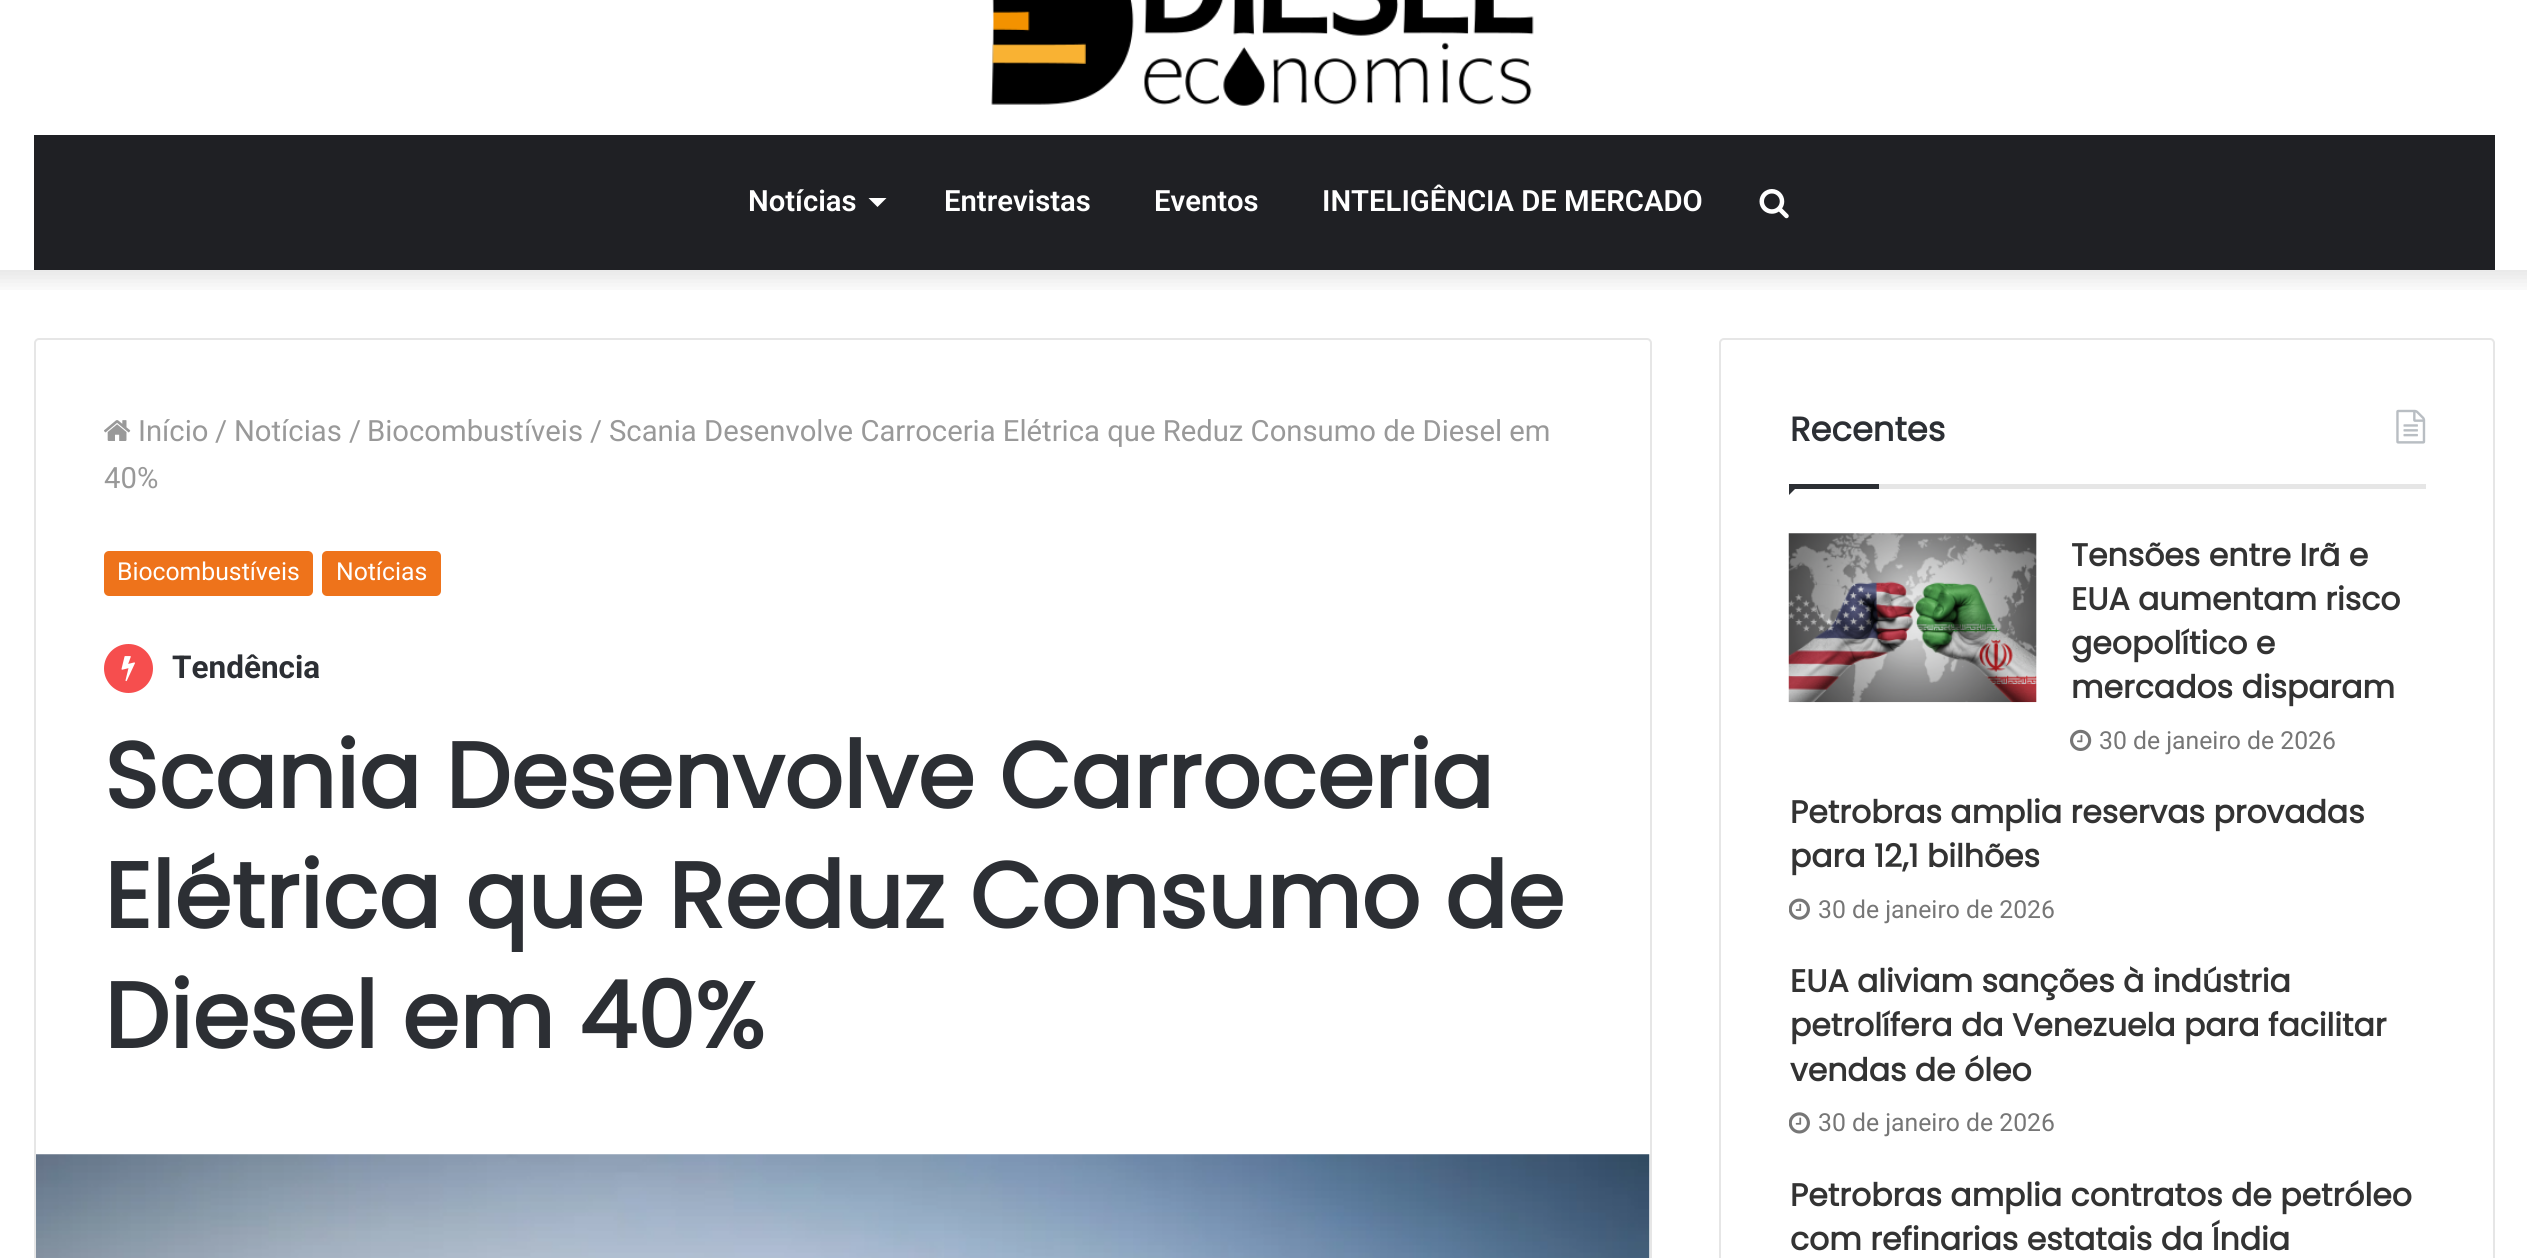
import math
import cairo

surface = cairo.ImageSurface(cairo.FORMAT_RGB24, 2527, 1258)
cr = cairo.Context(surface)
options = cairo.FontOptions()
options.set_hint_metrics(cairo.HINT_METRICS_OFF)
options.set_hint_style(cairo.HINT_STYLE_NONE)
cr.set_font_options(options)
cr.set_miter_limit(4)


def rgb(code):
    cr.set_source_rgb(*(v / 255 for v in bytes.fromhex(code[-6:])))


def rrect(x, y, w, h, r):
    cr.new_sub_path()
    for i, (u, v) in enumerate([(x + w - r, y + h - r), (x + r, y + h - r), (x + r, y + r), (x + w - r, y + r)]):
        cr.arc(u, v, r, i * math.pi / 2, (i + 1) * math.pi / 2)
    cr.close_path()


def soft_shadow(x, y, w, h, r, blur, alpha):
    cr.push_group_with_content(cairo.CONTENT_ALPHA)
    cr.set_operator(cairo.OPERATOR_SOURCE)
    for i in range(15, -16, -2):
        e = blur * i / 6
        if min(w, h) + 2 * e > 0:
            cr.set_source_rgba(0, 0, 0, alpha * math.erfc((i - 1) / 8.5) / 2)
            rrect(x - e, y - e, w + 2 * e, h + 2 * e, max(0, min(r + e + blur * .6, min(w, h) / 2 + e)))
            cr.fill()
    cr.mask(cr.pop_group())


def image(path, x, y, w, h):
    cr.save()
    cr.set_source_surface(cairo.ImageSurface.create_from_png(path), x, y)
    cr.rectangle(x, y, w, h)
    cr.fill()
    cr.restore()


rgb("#ffffff")
cr.paint()
cr.save()
cr.rectangle(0, 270, 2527, 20)
cr.clip()
rgb("#000000")
soft_shadow(-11, -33, 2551, 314, 0, 11, 0.1)
cr.restore()
image("img/1.png", 991, 0, 543, 106)
rgb("#1f2024")
cr.rectangle(34, 135, 2461, 135)
cr.fill()
rgb("#ffffff")
cr.new_path()
cr.move_to(868.5, 198)
cr.line_to(886.5, 198)
cr.line_to(877.5, 207)
cr.close_path()
cr.fill()
image("img/2.png", 1759, 189, 30, 30)
rrect(35, 339, 1616, 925, 4)
rgb("#e6e6e6")
cr.stroke()
image("img/3.png", 104, 420, 27, 21)
rgb("#ee731b")
rrect(104, 551, 209, 45, 5)
cr.fill()
rrect(322, 551, 119, 45, 5)
cr.fill()
rgb("#f64e4e")
cr.arc(128.5, 668.5, 24.5, 0, 2 * math.pi)
cr.fill()
image("img/4.png", 121, 656, 14, 26)
image("img/5.png", 36, 1154, 1614, 104)
rrect(1720, 339, 774, 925, 4)
rgb("#e6e6e6")
cr.stroke()
cr.rectangle(1879, 484, 547, 5)
cr.fill()
image("img/6.png", 2396, 409, 30, 35)
rgb("#2c2f34")
cr.new_path()
cr.move_to(1789, 484)
cr.line_to(1800, 484)
cr.line_to(1789, 495)
cr.close_path()
cr.fill()
cr.rectangle(1789, 484, 90, 5)
cr.fill()
image("img/7.png", 1788, 533, 249, 170)
image("img/8.png", 2070, 729, 22, 22)
image("img/9.png", 1789, 898, 21, 22)
image("img/10.png", 1789, 1112, 21, 22)
cr.select_font_face("Roboto SemiBold")
cr.set_font_size(29.25)
rgb("#ffffff")
for x, y, s in [
    (748, 211, "Notícias"),
    (944, 211, "Entrevistas"),
    (1154, 211, "Eventos"),
    (1322, 211, "INTELIGÊNCIA DE MERCADO"),
]:
    cr.move_to(x, y)
    cr.show_text(s)
cr.select_font_face("Roboto")
rgb("#999999")
for x, y, s in [
    (138, 441, "Início"),
    (215, 441, "/"),
    (234, 441, "Notícias"),
    (349, 441, "/"),
    (367, 441, "Biocombustíveis"),
    (590, 441, "/"),
    (609, 441, "Scania Desenvolve Carroceria Elétrica que Reduz Consumo de Diesel em"),
    (104, 488, "40%"),
]:
    cr.move_to(x, y)
    cr.show_text(s)
cr.set_font_size(24.75)
rgb("#ffffff")
cr.move_to(117, 580)
cr.show_text("Biocombustíveis")
cr.move_to(336, 580)
cr.show_text("Notícias")
cr.select_font_face("Roboto", cairo.FONT_SLANT_NORMAL, cairo.FONT_WEIGHT_BOLD)
cr.set_font_size(31.5)
rgb("#2c2f34")
cr.move_to(172, 678)
cr.show_text("Tendência")
cr.select_font_face("Poppins", cairo.FONT_SLANT_NORMAL, cairo.FONT_WEIGHT_BOLD)
cr.set_font_size(92.25)
for x, y, s in [
    (104, 808, "Scania Desenvolve Carroceria"),
    (104, 928, "Elétrica que Reduz Consumo de"),
    (104, 1048, "Diesel em 40%"),
]:
    cr.move_to(x, y)
    cr.show_text(s)
cr.set_font_size(33.75)
cr.move_to(1790, 441)
cr.show_text("Recentes")
cr.set_font_size(31.5)
rgb("#333333")
for x, y, s in [
    (2071, 566, "Tensões entre Irã e"),
    (2071, 610, "EUA aumentam risco"),
    (2071, 654, "geopolítico e"),
    (2071, 698, "mercados disparam"),
]:
    cr.move_to(x, y)
    cr.show_text(s)
cr.select_font_face("Roboto")
cr.set_font_size(24.75)
rgb("#767676")
cr.move_to(2099, 749)
cr.show_text("30 de janeiro de 2026")
cr.select_font_face("Poppins", cairo.FONT_SLANT_NORMAL, cairo.FONT_WEIGHT_BOLD)
cr.set_font_size(31.5)
rgb("#333333")
cr.move_to(1790, 823)
cr.show_text("Petrobras amplia reservas provadas")
cr.move_to(1790, 867)
cr.show_text("para 12,1 bilhões")
cr.select_font_face("Roboto")
cr.set_font_size(24.75)
rgb("#767676")
cr.move_to(1818, 918)
cr.show_text("30 de janeiro de 2026")
cr.select_font_face("Poppins", cairo.FONT_SLANT_NORMAL, cairo.FONT_WEIGHT_BOLD)
cr.set_font_size(31.5)
rgb("#333333")
for x, y, s in [
    (1790, 992, "EUA aliviam sanções à indústria"),
    (1790, 1036, "petrolífera da Venezuela para facilitar"),
    (1790, 1081, "vendas de óleo"),
]:
    cr.move_to(x, y)
    cr.show_text(s)
cr.select_font_face("Roboto")
cr.set_font_size(24.75)
rgb("#767676")
cr.move_to(1818, 1131)
cr.show_text("30 de janeiro de 2026")
cr.select_font_face("Poppins", cairo.FONT_SLANT_NORMAL, cairo.FONT_WEIGHT_BOLD)
cr.set_font_size(31.5)
rgb("#333333")
cr.move_to(1790, 1206)
cr.show_text("Petrobras amplia contratos de petróleo")
cr.move_to(1790, 1250)
cr.show_text("com refinarias estatais da Índia")
surface.write_to_png("page.png")
